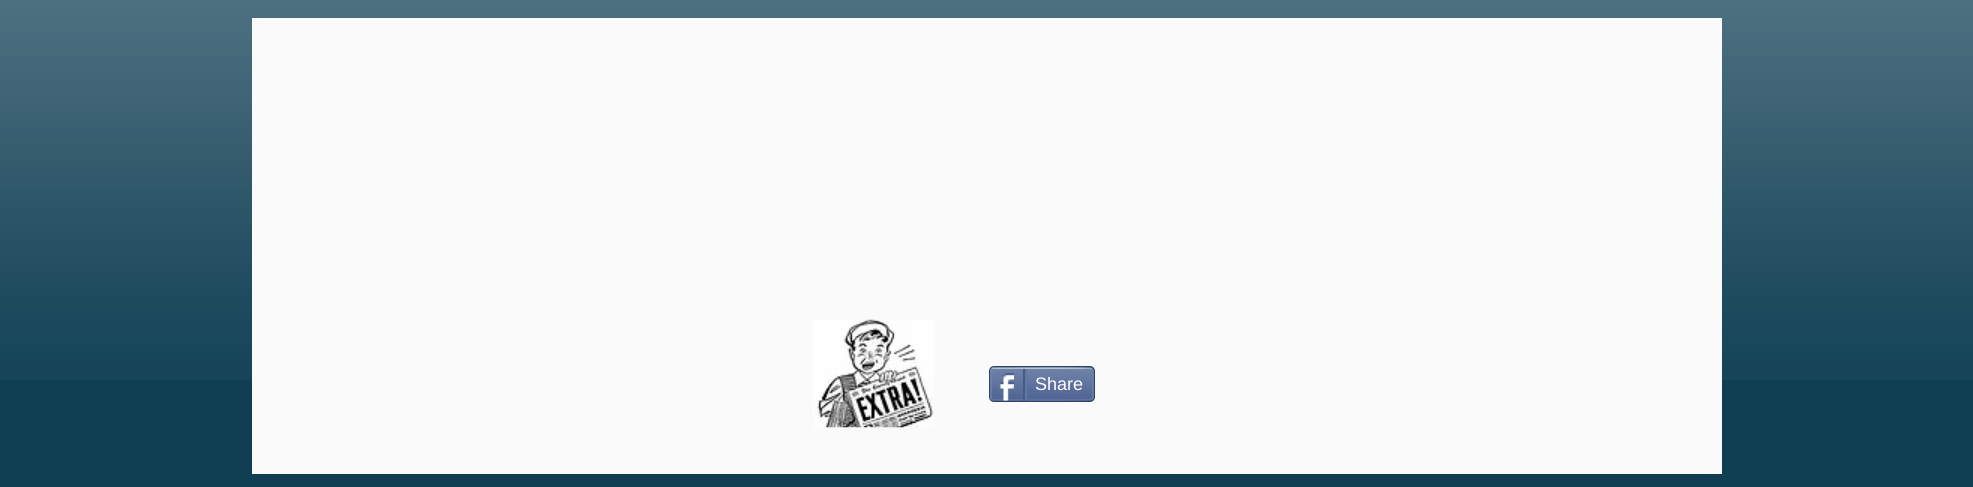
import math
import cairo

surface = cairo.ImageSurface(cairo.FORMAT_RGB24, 1973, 487)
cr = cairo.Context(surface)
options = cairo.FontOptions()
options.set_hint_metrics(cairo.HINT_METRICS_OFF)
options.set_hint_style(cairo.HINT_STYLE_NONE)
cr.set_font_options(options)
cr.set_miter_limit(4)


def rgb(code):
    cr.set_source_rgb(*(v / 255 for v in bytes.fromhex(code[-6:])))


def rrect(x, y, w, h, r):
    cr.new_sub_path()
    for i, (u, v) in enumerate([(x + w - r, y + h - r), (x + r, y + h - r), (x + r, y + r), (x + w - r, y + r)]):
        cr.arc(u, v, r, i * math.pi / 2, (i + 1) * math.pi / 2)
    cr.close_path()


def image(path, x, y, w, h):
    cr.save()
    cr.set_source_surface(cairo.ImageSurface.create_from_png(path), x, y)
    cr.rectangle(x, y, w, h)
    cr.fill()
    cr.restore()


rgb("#103f54")
cr.paint()
image("img/1.png", 0, 0, 1973, 380)
rgb("#fafafa")
cr.rectangle(252, 18, 1470, 456)
cr.fill()
image("img/2.png", 813, 319, 121, 109)
rrect(990, 367, 104, 34, 4)
rgb("#2d4565")
cr.stroke()
image("img/3.png", 990, 369, 104, 32)
cr.new_path()
cr.move_to(991.5, 369)
cr.line_to(993, 368)
cr.line_to(1009, 368)
cr.curve_to(1017.5, 368, 1090, 367.5, 1091.5, 368.5)
cr.line_to(1092, 369)
rgb("#9aabc6")
cr.set_line_width(1.5)
cr.stroke()
cr.new_path()
cr.move_to(1092, 369)
cr.curve_to(1092.5, 369.5, 1093, 370, 1093, 370.5)
cr.line_to(1093, 397.5)
cr.curve_to(1093, 398, 1092.5, 398.5, 1092, 399)
rgb("#6f83ad")
cr.stroke()
cr.new_path()
cr.move_to(1092, 399)
cr.line_to(1091.5, 399.5)
cr.curve_to(1090, 400.5, 1017.5, 400, 1009, 400)
cr.line_to(993, 400)
cr.line_to(991.5, 399)
rgb("#6176a3")
cr.stroke()
cr.new_path()
cr.move_to(991.5, 399)
cr.curve_to(991, 398.5, 991, 398, 991, 397.5)
cr.line_to(991, 370.5)
cr.curve_to(991, 370, 991, 369.5, 991.5, 369)
rgb("#6f83ad")
cr.stroke()
image("img/4.png", 999, 373, 15, 28)
rgb("#425e85")
cr.rectangle(1023, 369, 2, 32)
cr.fill()
rgb("#6176a3")
cr.rectangle(1025, 369, 2, 30)
cr.fill()
cr.select_font_face("Liberation Sans")
cr.set_font_size(18)
rgb("#ffffff")
cr.move_to(1035, 390)
cr.show_text("Share")
surface.write_to_png("page.png")
